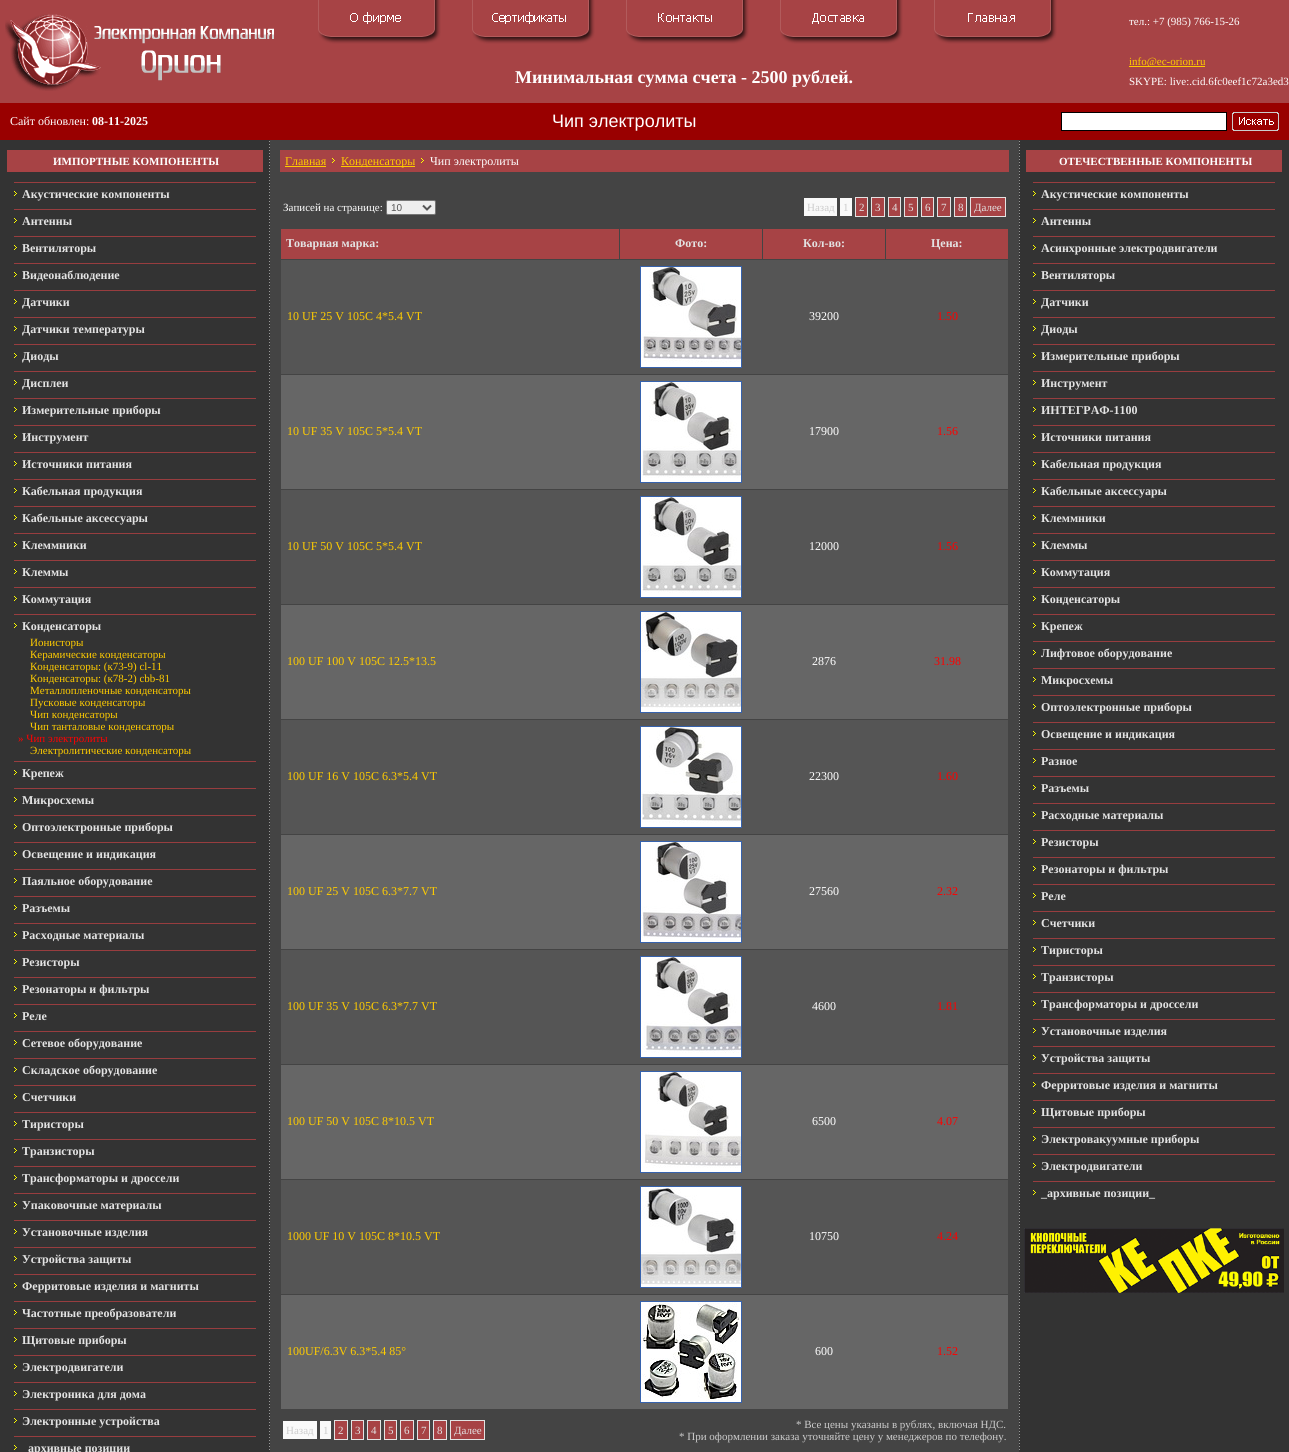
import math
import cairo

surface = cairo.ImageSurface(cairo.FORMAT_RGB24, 1289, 1452)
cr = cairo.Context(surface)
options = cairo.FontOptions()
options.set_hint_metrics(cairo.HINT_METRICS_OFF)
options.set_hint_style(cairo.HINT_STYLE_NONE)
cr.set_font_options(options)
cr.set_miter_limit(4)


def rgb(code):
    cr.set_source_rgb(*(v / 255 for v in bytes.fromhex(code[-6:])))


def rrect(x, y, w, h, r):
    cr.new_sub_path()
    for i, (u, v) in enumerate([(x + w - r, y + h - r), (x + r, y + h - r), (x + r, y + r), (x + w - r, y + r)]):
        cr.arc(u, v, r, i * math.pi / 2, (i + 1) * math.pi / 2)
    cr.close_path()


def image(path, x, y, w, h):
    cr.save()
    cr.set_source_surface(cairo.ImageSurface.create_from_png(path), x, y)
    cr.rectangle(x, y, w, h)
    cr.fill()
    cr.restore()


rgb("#a74345")
cr.paint()
image("img/1.png", 5, 14, 269, 77)
image("img/2.png", 318, 0, 123, 44)
image("img/3.png", 472, 0, 123, 44)
image("img/4.png", 626, 0, 123, 44)
image("img/5.png", 780, 0, 123, 44)
image("img/6.png", 934, 0, 123, 44)
rgb("#ffcc00")
cr.rectangle(1129, 66, 76, 1)
cr.fill()
rgb("#990000")
cr.rectangle(0, 103, 1289, 37)
cr.fill()
rgb("#ffffff")
cr.rectangle(1061.5, 112.5, 165, 18)
cr.fill_preserve()
rgb("#000000")
cr.set_line_width(1)
cr.stroke()
image("img/7.png", 1232, 112, 47, 19)
rgb("#333333")
cr.rectangle(0, 140, 270, 1312)
cr.fill()
image("img/8.png", 269, 141, 1, 1309)
rgb("#a74345")
cr.rectangle(7, 150, 256, 22)
cr.fill()
rgb("#983d3f")
cr.rectangle(14, 182, 242, 1)
cr.fill()
image("img/9.png", 14, 191, 3, 5)
cr.rectangle(14, 209, 242, 1)
cr.fill()
image("img/9.png", 14, 218, 3, 5)
cr.rectangle(14, 236, 242, 1)
cr.fill()
image("img/9.png", 14, 245, 3, 5)
cr.rectangle(14, 263, 242, 1)
cr.fill()
image("img/9.png", 14, 272, 3, 5)
cr.rectangle(14, 290, 242, 1)
cr.fill()
image("img/9.png", 14, 299, 3, 5)
cr.rectangle(14, 317, 242, 1)
cr.fill()
image("img/9.png", 14, 326, 3, 5)
cr.rectangle(14, 344, 242, 1)
cr.fill()
image("img/9.png", 14, 353, 3, 5)
cr.rectangle(14, 371, 242, 1)
cr.fill()
image("img/9.png", 14, 380, 3, 5)
cr.rectangle(14, 398, 242, 1)
cr.fill()
image("img/9.png", 14, 407, 3, 5)
cr.rectangle(14, 425, 242, 1)
cr.fill()
image("img/9.png", 14, 434, 3, 5)
cr.rectangle(14, 452, 242, 1)
cr.fill()
image("img/9.png", 14, 461, 3, 5)
cr.rectangle(14, 479, 242, 1)
cr.fill()
image("img/9.png", 14, 488, 3, 5)
cr.rectangle(14, 506, 242, 1)
cr.fill()
image("img/9.png", 14, 515, 3, 5)
cr.rectangle(14, 533, 242, 1)
cr.fill()
image("img/9.png", 14, 542, 3, 5)
cr.rectangle(14, 560, 242, 1)
cr.fill()
image("img/9.png", 14, 569, 3, 5)
cr.rectangle(14, 587, 242, 1)
cr.fill()
image("img/9.png", 14, 596, 3, 5)
cr.rectangle(14, 614, 242, 1)
cr.fill()
image("img/9.png", 14, 623, 3, 5)
cr.rectangle(14, 761, 242, 1)
cr.fill()
image("img/9.png", 14, 770, 3, 5)
cr.rectangle(14, 788, 242, 1)
cr.fill()
image("img/9.png", 14, 797, 3, 5)
cr.rectangle(14, 815, 242, 1)
cr.fill()
image("img/9.png", 14, 824, 3, 5)
cr.rectangle(14, 842, 242, 1)
cr.fill()
image("img/9.png", 14, 851, 3, 5)
cr.rectangle(14, 869, 242, 1)
cr.fill()
image("img/9.png", 14, 878, 3, 5)
cr.rectangle(14, 896, 242, 1)
cr.fill()
image("img/9.png", 14, 905, 3, 5)
cr.rectangle(14, 923, 242, 1)
cr.fill()
image("img/9.png", 14, 932, 3, 5)
cr.rectangle(14, 950, 242, 1)
cr.fill()
image("img/9.png", 14, 959, 3, 5)
cr.rectangle(14, 977, 242, 1)
cr.fill()
image("img/9.png", 14, 986, 3, 5)
cr.rectangle(14, 1004, 242, 1)
cr.fill()
image("img/9.png", 14, 1013, 3, 5)
cr.rectangle(14, 1031, 242, 1)
cr.fill()
image("img/9.png", 14, 1040, 3, 5)
cr.rectangle(14, 1058, 242, 1)
cr.fill()
image("img/9.png", 14, 1067, 3, 5)
cr.rectangle(14, 1085, 242, 1)
cr.fill()
image("img/9.png", 14, 1094, 3, 5)
cr.rectangle(14, 1112, 242, 1)
cr.fill()
image("img/9.png", 14, 1121, 3, 5)
cr.rectangle(14, 1139, 242, 1)
cr.fill()
image("img/9.png", 14, 1148, 3, 5)
cr.rectangle(14, 1166, 242, 1)
cr.fill()
image("img/9.png", 14, 1175, 3, 5)
cr.rectangle(14, 1193, 242, 1)
cr.fill()
image("img/9.png", 14, 1202, 3, 5)
cr.rectangle(14, 1220, 242, 1)
cr.fill()
image("img/9.png", 14, 1229, 3, 5)
cr.rectangle(14, 1247, 242, 1)
cr.fill()
image("img/9.png", 14, 1256, 3, 5)
cr.rectangle(14, 1274, 242, 1)
cr.fill()
image("img/9.png", 14, 1283, 3, 5)
cr.rectangle(14, 1301, 242, 1)
cr.fill()
image("img/9.png", 14, 1310, 3, 5)
cr.rectangle(14, 1328, 242, 1)
cr.fill()
image("img/9.png", 14, 1337, 3, 5)
cr.rectangle(14, 1355, 242, 1)
cr.fill()
image("img/9.png", 14, 1364, 3, 5)
cr.rectangle(14, 1382, 242, 1)
cr.fill()
image("img/9.png", 14, 1391, 3, 5)
cr.rectangle(14, 1409, 242, 1)
cr.fill()
image("img/9.png", 14, 1418, 3, 5)
cr.rectangle(14, 1436, 242, 1)
cr.fill()
image("img/9.png", 14, 1445, 3, 5)
for x, y, w, h, color in [
    (270, 140, 749, 1312, "#444444"),
    (280, 150, 729, 22, "#a74345"),
    (285, 166, 41, 1, "#ffcc00"),
]:
    rgb(color)
    cr.rectangle(x, y, w, h)
    cr.fill()
image("img/10.png", 332, 158, 3, 5)
cr.rectangle(341, 166, 74, 1)
cr.fill()
image("img/10.png", 421, 158, 3, 5)
rgb("#eeeeee")
rrect(386.5, 200.5, 49, 14, 1.5)
cr.fill_preserve()
rgb("#767676")
cr.stroke()
cr.new_path()
cr.move_to(423, 205.5)
cr.line_to(427, 209.5)
cr.line_to(431, 205.5)
rgb("#555555")
cr.set_line_width(2)
cr.stroke()
rgb("#f9f9f9")
cr.rectangle(804, 198, 33, 18)
cr.fill()
cr.rectangle(840, 198, 12, 18)
cr.fill()
rgb("#a74345")
cr.rectangle(855.5, 197.5, 12, 19)
cr.fill_preserve()
rgb("#e3e3e3")
cr.set_line_width(1)
cr.stroke()
rgb("#a74345")
cr.rectangle(871.5, 197.5, 13, 19)
cr.fill_preserve()
rgb("#e3e3e3")
cr.stroke()
rgb("#a74345")
cr.rectangle(888.5, 197.5, 12, 19)
cr.fill_preserve()
rgb("#e3e3e3")
cr.stroke()
rgb("#a74345")
cr.rectangle(904.5, 197.5, 13, 19)
cr.fill_preserve()
rgb("#e3e3e3")
cr.stroke()
rgb("#a74345")
cr.rectangle(921.5, 197.5, 12, 19)
cr.fill_preserve()
rgb("#e3e3e3")
cr.stroke()
rgb("#a74345")
cr.rectangle(937.5, 197.5, 13, 19)
cr.fill_preserve()
rgb("#e3e3e3")
cr.stroke()
rgb("#a74345")
cr.rectangle(954.5, 197.5, 12, 19)
cr.fill_preserve()
rgb("#e3e3e3")
cr.stroke()
rgb("#a74345")
cr.rectangle(970.5, 197.5, 35, 19)
cr.fill_preserve()
rgb("#e3e3e3")
cr.stroke()
for x, y, w, h, color in [
    (281, 229, 338, 30, "#a74345"),
    (620, 229, 142, 30, "#a74345"),
    (763, 229, 122, 30, "#a74345"),
    (886, 229, 122, 30, "#a74345"),
    (281, 260, 727, 114, "#555555"),
]:
    rgb(color)
    cr.rectangle(x, y, w, h)
    cr.fill()
cr.rectangle(640.5, 266.5, 101, 101)
rgb("#3662ad")
cr.stroke()
image("img/11.png", 641, 267, 100, 100)
rgb("#666666")
cr.rectangle(281, 375, 727, 114)
cr.fill()
cr.rectangle(640.5, 381.5, 101, 101)
rgb("#3662ad")
cr.stroke()
image("img/12.png", 641, 382, 100, 100)
rgb("#555555")
cr.rectangle(281, 490, 727, 114)
cr.fill()
cr.rectangle(640.5, 496.5, 101, 101)
rgb("#3662ad")
cr.stroke()
image("img/13.png", 641, 497, 100, 100)
rgb("#666666")
cr.rectangle(281, 605, 727, 114)
cr.fill()
cr.rectangle(640.5, 611.5, 101, 101)
rgb("#3662ad")
cr.stroke()
image("img/14.png", 641, 612, 100, 100)
rgb("#555555")
cr.rectangle(281, 720, 727, 114)
cr.fill()
cr.rectangle(640.5, 726.5, 101, 101)
rgb("#3662ad")
cr.stroke()
image("img/15.png", 641, 727, 100, 100)
rgb("#666666")
cr.rectangle(281, 835, 727, 114)
cr.fill()
cr.rectangle(640.5, 841.5, 101, 101)
rgb("#3662ad")
cr.stroke()
image("img/16.png", 641, 842, 100, 100)
rgb("#555555")
cr.rectangle(281, 950, 727, 114)
cr.fill()
cr.rectangle(640.5, 956.5, 101, 101)
rgb("#3662ad")
cr.stroke()
image("img/17.png", 641, 957, 100, 100)
rgb("#666666")
cr.rectangle(281, 1065, 727, 114)
cr.fill()
cr.rectangle(640.5, 1071.5, 101, 101)
rgb("#3662ad")
cr.stroke()
image("img/18.png", 641, 1072, 100, 100)
rgb("#555555")
cr.rectangle(281, 1180, 727, 114)
cr.fill()
cr.rectangle(640.5, 1186.5, 101, 101)
rgb("#3662ad")
cr.stroke()
image("img/19.png", 641, 1187, 100, 100)
rgb("#666666")
cr.rectangle(281, 1295, 727, 114)
cr.fill()
cr.rectangle(640.5, 1301.5, 101, 101)
rgb("#3662ad")
cr.stroke()
image("img/20.png", 641, 1302, 100, 100)
rgb("#f9f9f9")
cr.rectangle(283, 1421, 34, 18)
cr.fill()
cr.rectangle(320, 1421, 11, 18)
cr.fill()
rgb("#a74345")
cr.rectangle(334.5, 1420.5, 13, 19)
cr.fill_preserve()
rgb("#e3e3e3")
cr.stroke()
rgb("#a74345")
cr.rectangle(351.5, 1420.5, 12, 19)
cr.fill_preserve()
rgb("#e3e3e3")
cr.stroke()
rgb("#a74345")
cr.rectangle(367.5, 1420.5, 13, 19)
cr.fill_preserve()
rgb("#e3e3e3")
cr.stroke()
rgb("#a74345")
cr.rectangle(384.5, 1420.5, 12, 19)
cr.fill_preserve()
rgb("#e3e3e3")
cr.stroke()
rgb("#a74345")
cr.rectangle(400.5, 1420.5, 13, 19)
cr.fill_preserve()
rgb("#e3e3e3")
cr.stroke()
rgb("#a74345")
cr.rectangle(417.5, 1420.5, 12, 19)
cr.fill_preserve()
rgb("#e3e3e3")
cr.stroke()
rgb("#a74345")
cr.rectangle(433.5, 1420.5, 13, 19)
cr.fill_preserve()
rgb("#e3e3e3")
cr.stroke()
rgb("#a74345")
cr.rectangle(450.5, 1420.5, 34, 19)
cr.fill_preserve()
rgb("#e3e3e3")
cr.stroke()
rgb("#333333")
cr.rectangle(1019, 140, 270, 1312)
cr.fill()
image("img/8.png", 1019, 141, 1, 1309)
rgb("#a74345")
cr.rectangle(1026, 150, 256, 22)
cr.fill()
rgb("#983d3f")
cr.rectangle(1033, 182, 242, 1)
cr.fill()
image("img/9.png", 1033, 191, 3, 5)
cr.rectangle(1033, 209, 242, 1)
cr.fill()
image("img/9.png", 1033, 218, 3, 5)
cr.rectangle(1033, 236, 242, 1)
cr.fill()
image("img/9.png", 1033, 245, 3, 5)
cr.rectangle(1033, 263, 242, 1)
cr.fill()
image("img/9.png", 1033, 272, 3, 5)
cr.rectangle(1033, 290, 242, 1)
cr.fill()
image("img/9.png", 1033, 299, 3, 5)
cr.rectangle(1033, 317, 242, 1)
cr.fill()
image("img/9.png", 1033, 326, 3, 5)
cr.rectangle(1033, 344, 242, 1)
cr.fill()
image("img/9.png", 1033, 353, 3, 5)
cr.rectangle(1033, 371, 242, 1)
cr.fill()
image("img/9.png", 1033, 380, 3, 5)
cr.rectangle(1033, 398, 242, 1)
cr.fill()
image("img/9.png", 1033, 407, 3, 5)
cr.rectangle(1033, 425, 242, 1)
cr.fill()
image("img/9.png", 1033, 434, 3, 5)
cr.rectangle(1033, 452, 242, 1)
cr.fill()
image("img/9.png", 1033, 461, 3, 5)
cr.rectangle(1033, 479, 242, 1)
cr.fill()
image("img/9.png", 1033, 488, 3, 5)
cr.rectangle(1033, 506, 242, 1)
cr.fill()
image("img/9.png", 1033, 515, 3, 5)
cr.rectangle(1033, 533, 242, 1)
cr.fill()
image("img/9.png", 1033, 542, 3, 5)
cr.rectangle(1033, 560, 242, 1)
cr.fill()
image("img/9.png", 1033, 569, 3, 5)
cr.rectangle(1033, 587, 242, 1)
cr.fill()
image("img/9.png", 1033, 596, 3, 5)
cr.rectangle(1033, 614, 242, 1)
cr.fill()
image("img/9.png", 1033, 623, 3, 5)
cr.rectangle(1033, 641, 242, 1)
cr.fill()
image("img/9.png", 1033, 650, 3, 5)
cr.rectangle(1033, 668, 242, 1)
cr.fill()
image("img/9.png", 1033, 677, 3, 5)
cr.rectangle(1033, 695, 242, 1)
cr.fill()
image("img/9.png", 1033, 704, 3, 5)
cr.rectangle(1033, 722, 242, 1)
cr.fill()
image("img/9.png", 1033, 731, 3, 5)
cr.rectangle(1033, 749, 242, 1)
cr.fill()
image("img/9.png", 1033, 758, 3, 5)
cr.rectangle(1033, 776, 242, 1)
cr.fill()
image("img/9.png", 1033, 785, 3, 5)
cr.rectangle(1033, 803, 242, 1)
cr.fill()
image("img/9.png", 1033, 812, 3, 5)
cr.rectangle(1033, 830, 242, 1)
cr.fill()
image("img/9.png", 1033, 839, 3, 5)
cr.rectangle(1033, 857, 242, 1)
cr.fill()
image("img/9.png", 1033, 866, 3, 5)
cr.rectangle(1033, 884, 242, 1)
cr.fill()
image("img/9.png", 1033, 893, 3, 5)
cr.rectangle(1033, 911, 242, 1)
cr.fill()
image("img/9.png", 1033, 920, 3, 5)
cr.rectangle(1033, 938, 242, 1)
cr.fill()
image("img/9.png", 1033, 947, 3, 5)
cr.rectangle(1033, 965, 242, 1)
cr.fill()
image("img/9.png", 1033, 974, 3, 5)
cr.rectangle(1033, 992, 242, 1)
cr.fill()
image("img/9.png", 1033, 1001, 3, 5)
cr.rectangle(1033, 1019, 242, 1)
cr.fill()
image("img/9.png", 1033, 1028, 3, 5)
cr.rectangle(1033, 1046, 242, 1)
cr.fill()
image("img/9.png", 1033, 1055, 3, 5)
cr.rectangle(1033, 1073, 242, 1)
cr.fill()
image("img/9.png", 1033, 1082, 3, 5)
cr.rectangle(1033, 1100, 242, 1)
cr.fill()
image("img/9.png", 1033, 1109, 3, 5)
cr.rectangle(1033, 1127, 242, 1)
cr.fill()
image("img/9.png", 1033, 1136, 3, 5)
cr.rectangle(1033, 1154, 242, 1)
cr.fill()
image("img/9.png", 1033, 1163, 3, 5)
cr.rectangle(1033, 1181, 242, 1)
cr.fill()
image("img/9.png", 1033, 1190, 3, 5)
image("img/21.png", 1024, 1228, 260, 65)
cr.select_font_face("Liberation Serif", cairo.FONT_SLANT_NORMAL, cairo.FONT_WEIGHT_BOLD)
cr.set_font_size(18)
rgb("#ffffff")
cr.move_to(515, 83)
cr.show_text("Минимальная сумма счета - 2500 рублей.")
cr.select_font_face("Liberation Serif")
cr.set_font_size(11)
cr.move_to(1129, 25)
cr.show_text("тел.: +7 (985) 766-15-26")
rgb("#ffcc00")
cr.move_to(1129, 65)
cr.show_text("info@ec-orion.ru")
rgb("#ffffff")
cr.move_to(1129, 85)
cr.show_text("SKYPE: live:.cid.6fc0eef1c72a3ed3")
cr.set_font_size(12)
cr.move_to(10, 125)
cr.show_text("Сайт обновлен:")
cr.select_font_face("Liberation Serif", cairo.FONT_SLANT_NORMAL, cairo.FONT_WEIGHT_BOLD)
cr.move_to(92, 125)
cr.show_text("08-11-2025")
cr.select_font_face("Liberation Sans")
cr.set_font_size(18)
cr.move_to(552, 127)
cr.show_text("Чип электролиты")
cr.select_font_face("Liberation Serif", cairo.FONT_SLANT_NORMAL, cairo.FONT_WEIGHT_BOLD)
cr.set_font_size(11)
cr.move_to(53, 165)
cr.show_text("ИМПОРТНЫЕ КОМПОНЕНТЫ")
cr.set_font_size(12)
rgb("#e3e3e3")
for x, y, s in [
    (22, 198, "Акустические компоненты"),
    (22, 225, "Антенны"),
    (22, 252, "Вентиляторы"),
    (22, 279, "Видеонаблюдение"),
    (22, 306, "Датчики"),
    (22, 333, "Датчики температуры"),
    (22, 360, "Диоды"),
    (22, 387, "Дисплеи"),
    (22, 414, "Измерительные приборы"),
    (22, 441, "Инструмент"),
    (22, 468, "Источники питания"),
    (22, 495, "Кабельная продукция"),
    (22, 522, "Кабельные аксессуары"),
    (22, 549, "Клеммники"),
    (22, 576, "Клеммы"),
    (22, 603, "Коммутация"),
    (22, 630, "Конденсаторы"),
]:
    cr.move_to(x, y)
    cr.show_text(s)
cr.select_font_face("Liberation Serif")
cr.set_font_size(11)
rgb("#ffcc00")
for x, y, s in [
    (30, 646, "Ионисторы"),
    (30, 658, "Керамические конденсаторы"),
    (30, 670, "Конденсаторы: (к73-9) cl-11"),
    (30, 682, "Конденсаторы: (к78-2) cbb-81"),
    (30, 694, "Металлопленочные конденсаторы"),
    (30, 706, "Пусковые конденсаторы"),
    (30, 718, "Чип конденсаторы"),
    (30, 730, "Чип танталовые конденсаторы"),
]:
    cr.move_to(x, y)
    cr.show_text(s)
rgb("#ff0000")
cr.move_to(18, 742)
cr.show_text("» Чип электролиты")
rgb("#ffcc00")
cr.move_to(30, 754)
cr.show_text("Электролитические конденсаторы")
cr.select_font_face("Liberation Serif", cairo.FONT_SLANT_NORMAL, cairo.FONT_WEIGHT_BOLD)
cr.set_font_size(12)
rgb("#e3e3e3")
for x, y, s in [
    (22, 777, "Крепеж"),
    (22, 804, "Микросхемы"),
    (22, 831, "Оптоэлектронные приборы"),
    (22, 858, "Освещение и индикация"),
    (22, 885, "Паяльное оборудование"),
    (22, 912, "Разъемы"),
    (22, 939, "Расходные материалы"),
    (22, 966, "Резисторы"),
    (22, 993, "Резонаторы и фильтры"),
    (22, 1020, "Реле"),
    (22, 1047, "Сетевое оборудование"),
    (22, 1074, "Складское оборудование"),
    (22, 1101, "Счетчики"),
    (22, 1128, "Тиристоры"),
    (22, 1155, "Транзисторы"),
    (22, 1182, "Трансформаторы и дроссели"),
    (22, 1209, "Упаковочные материалы"),
    (22, 1236, "Установочные изделия"),
    (22, 1263, "Устройства защиты"),
    (22, 1290, "Ферритовые изделия и магниты"),
    (22, 1317, "Частотные преобразователи"),
    (22, 1344, "Щитовые приборы"),
    (22, 1371, "Электродвигатели"),
    (22, 1398, "Электроника для дома"),
    (22, 1425, "Электронные устройства"),
    (28, 1452, "архивные позиции"),
]:
    cr.move_to(x, y)
    cr.show_text(s)
cr.select_font_face("Liberation Serif")
rgb("#ffcc00")
cr.move_to(285, 165)
cr.show_text("Главная")
cr.move_to(341, 165)
cr.show_text("Конденсаторы")
rgb("#ffffff")
cr.move_to(430, 165)
cr.show_text("Чип электролиты")
cr.set_font_size(11)
cr.move_to(283, 211)
cr.show_text("Записей на странице:")
cr.select_font_face("Liberation Sans")
cr.set_font_size(10)
rgb("#555555")
cr.move_to(391, 211)
cr.show_text("10")
cr.select_font_face("Liberation Serif")
cr.set_font_size(11)
rgb("#cccccc")
cr.move_to(807, 211)
cr.show_text("Назад")
cr.move_to(843, 211)
cr.show_text("1")
rgb("#e3e3e3")
for x, y, s in [
    (859, 211, "2"),
    (875, 211, "3"),
    (892, 211, "4"),
    (908, 211, "5"),
    (925, 211, "6"),
    (941, 211, "7"),
    (958, 211, "8"),
    (974, 211, "Далее"),
]:
    cr.move_to(x, y)
    cr.show_text(s)
cr.select_font_face("Liberation Serif", cairo.FONT_SLANT_NORMAL, cairo.FONT_WEIGHT_BOLD)
cr.set_font_size(12)
for x, y, s in [
    (286, 247, "Товарная марка:"),
    (675, 247, "Фото:"),
    (803, 247, "Кол-во:"),
    (931, 247, "Цена:"),
]:
    cr.move_to(x, y)
    cr.show_text(s)
cr.select_font_face("Liberation Serif")
rgb("#ffcc00")
cr.move_to(287, 320)
cr.show_text("10 UF 25 V 105C 4*5.4 VT")
rgb("#ffffff")
cr.move_to(809, 320)
cr.show_text("39200")
rgb("#ff0000")
cr.move_to(937, 320)
cr.show_text("1.50")
rgb("#ffcc00")
cr.move_to(287, 435)
cr.show_text("10 UF 35 V 105C 5*5.4 VT")
rgb("#ffffff")
cr.move_to(809, 435)
cr.show_text("17900")
rgb("#ff0000")
cr.move_to(937, 435)
cr.show_text("1.56")
rgb("#ffcc00")
cr.move_to(287, 550)
cr.show_text("10 UF 50 V 105C 5*5.4 VT")
rgb("#ffffff")
cr.move_to(809, 550)
cr.show_text("12000")
rgb("#ff0000")
cr.move_to(937, 550)
cr.show_text("1.56")
rgb("#ffcc00")
cr.move_to(287, 665)
cr.show_text("100 UF 100 V 105C 12.5*13.5")
rgb("#ffffff")
cr.move_to(812, 665)
cr.show_text("2876")
rgb("#ff0000")
cr.move_to(934, 665)
cr.show_text("31.98")
rgb("#ffcc00")
cr.move_to(287, 780)
cr.show_text("100 UF 16 V 105C 6.3*5.4 VT")
rgb("#ffffff")
cr.move_to(809, 780)
cr.show_text("22300")
rgb("#ff0000")
cr.move_to(937, 780)
cr.show_text("1.60")
rgb("#ffcc00")
cr.move_to(287, 895)
cr.show_text("100 UF 25 V 105C 6.3*7.7 VT")
rgb("#ffffff")
cr.move_to(809, 895)
cr.show_text("27560")
rgb("#ff0000")
cr.move_to(937, 895)
cr.show_text("2.32")
rgb("#ffcc00")
cr.move_to(287, 1010)
cr.show_text("100 UF 35 V 105C 6.3*7.7 VT")
rgb("#ffffff")
cr.move_to(812, 1010)
cr.show_text("4600")
rgb("#ff0000")
cr.move_to(937, 1010)
cr.show_text("1.81")
rgb("#ffcc00")
cr.move_to(287, 1125)
cr.show_text("100 UF 50 V 105C 8*10.5 VT")
rgb("#ffffff")
cr.move_to(812, 1125)
cr.show_text("6500")
rgb("#ff0000")
cr.move_to(937, 1125)
cr.show_text("4.07")
rgb("#ffcc00")
cr.move_to(287, 1240)
cr.show_text("1000 UF 10 V 105C 8*10.5 VT")
rgb("#ffffff")
cr.move_to(809, 1240)
cr.show_text("10750")
rgb("#ff0000")
cr.move_to(937, 1240)
cr.show_text("4.24")
rgb("#ffcc00")
cr.move_to(287, 1355)
cr.show_text("100UF/6.3V 6.3*5.4 85°")
rgb("#ffffff")
cr.move_to(815, 1355)
cr.show_text("600")
rgb("#ff0000")
cr.move_to(937, 1355)
cr.show_text("1.52")
cr.set_font_size(11)
rgb("#cccccc")
cr.move_to(286, 1434)
cr.show_text("Назад")
cr.move_to(323, 1434)
cr.show_text("1")
rgb("#e3e3e3")
for x, y, s in [
    (338, 1434, "2"),
    (355, 1434, "3"),
    (371, 1434, "4"),
    (388, 1434, "5"),
    (404, 1434, "6"),
    (421, 1434, "7"),
    (437, 1434, "8"),
    (454, 1434, "Далее"),
]:
    cr.move_to(x, y)
    cr.show_text(s)
rgb("#cccccc")
cr.move_to(796, 1428)
cr.show_text("* Все цены указаны в рублях, включая НДС.")
cr.move_to(679, 1440)
cr.show_text("* При оформлении заказа уточняйте цену у менеджеров по телефону.")
cr.select_font_face("Liberation Serif", cairo.FONT_SLANT_NORMAL, cairo.FONT_WEIGHT_BOLD)
rgb("#ffffff")
cr.move_to(1059, 165)
cr.show_text("ОТЕЧЕСТВЕННЫЕ КОМПОНЕНТЫ")
cr.set_font_size(12)
rgb("#e3e3e3")
for x, y, s in [
    (1041, 198, "Акустические компоненты"),
    (1041, 225, "Антенны"),
    (1041, 252, "Асинхронные электродвигатели"),
    (1041, 279, "Вентиляторы"),
    (1041, 306, "Датчики"),
    (1041, 333, "Диоды"),
    (1041, 360, "Измерительные приборы"),
    (1041, 387, "Инструмент"),
    (1041, 414, "ИНТЕГРАФ-1100"),
    (1041, 441, "Источники питания"),
    (1041, 468, "Кабельная продукция"),
    (1041, 495, "Кабельные аксессуары"),
    (1041, 522, "Клеммники"),
    (1041, 549, "Клеммы"),
    (1041, 576, "Коммутация"),
    (1041, 603, "Конденсаторы"),
    (1041, 630, "Крепеж"),
    (1041, 657, "Лифтовое оборудование"),
    (1041, 684, "Микросхемы"),
    (1041, 711, "Оптоэлектронные приборы"),
    (1041, 738, "Освещение и индикация"),
    (1041, 765, "Разное"),
    (1041, 792, "Разъемы"),
    (1041, 819, "Расходные материалы"),
    (1041, 846, "Резисторы"),
    (1041, 873, "Резонаторы и фильтры"),
    (1041, 900, "Реле"),
    (1041, 927, "Счетчики"),
    (1041, 954, "Тиристоры"),
    (1041, 981, "Транзисторы"),
    (1041, 1008, "Трансформаторы и дроссели"),
    (1041, 1035, "Установочные изделия"),
    (1041, 1062, "Устройства защиты"),
    (1041, 1089, "Ферритовые изделия и магниты"),
    (1041, 1116, "Щитовые приборы"),
    (1041, 1143, "Электровакуумные приборы"),
    (1041, 1170, "Электродвигатели"),
    (1041, 1197, "_архивные позиции_"),
]:
    cr.move_to(x, y)
    cr.show_text(s)
surface.write_to_png("page.png")
